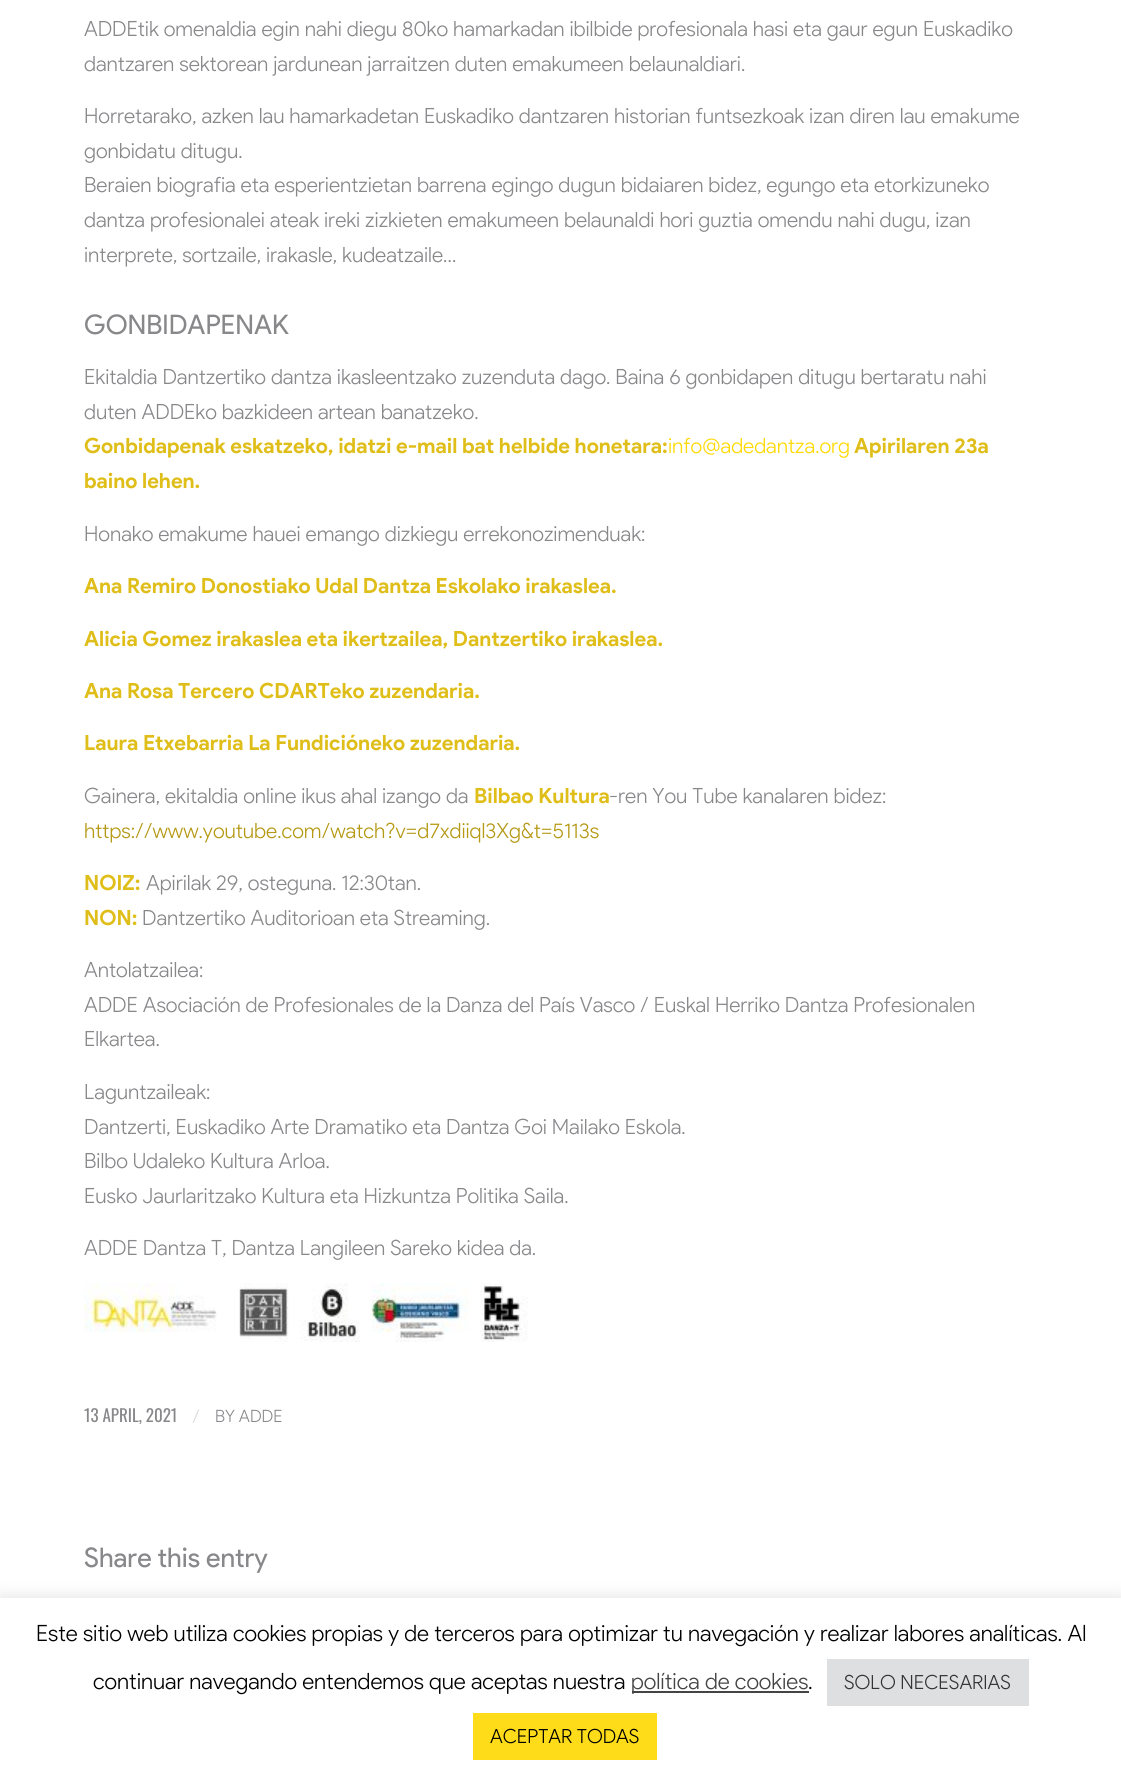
import math
import cairo

surface = cairo.ImageSurface(cairo.FORMAT_RGB24, 1121, 1777)
cr = cairo.Context(surface)
options = cairo.FontOptions()
options.set_hint_metrics(cairo.HINT_METRICS_OFF)
options.set_hint_style(cairo.HINT_STYLE_NONE)
cr.set_font_options(options)
cr.set_miter_limit(4)


def rgb(code):
    cr.set_source_rgb(*(v / 255 for v in bytes.fromhex(code[-6:])))


def rrect(x, y, w, h, r):
    cr.new_sub_path()
    for i, (u, v) in enumerate([(x + w - r, y + h - r), (x + r, y + h - r), (x + r, y + r), (x + w - r, y + r)]):
        cr.arc(u, v, r, i * math.pi / 2, (i + 1) * math.pi / 2)
    cr.close_path()


def soft_shadow(x, y, w, h, r, blur, alpha):
    cr.push_group_with_content(cairo.CONTENT_ALPHA)
    cr.set_operator(cairo.OPERATOR_SOURCE)
    for i in range(15, -16, -2):
        e = blur * i / 6
        if min(w, h) + 2 * e > 0:
            cr.set_source_rgba(0, 0, 0, alpha * math.erfc((i - 1) / 8.5) / 2)
            rrect(x - e, y - e, w + 2 * e, h + 2 * e, max(0, min(r + e + blur * .6, min(w, h) / 2 + e)))
            cr.fill()
    cr.mask(cr.pop_group())


def image(path, x, y, w, h):
    cr.save()
    cr.set_source_surface(cairo.ImageSurface.create_from_png(path), x, y)
    cr.rectangle(x, y, w, h)
    cr.fill()
    cr.restore()


rgb("#ffffff")
cr.paint()
image("img/1.png", 84, 1283, 444, 59)
rgb("#acabab")
soft_shadow(0, 1596, 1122, 180, 0, 7.5, 0.3)
for x, y, w, h, color in [
    (0, 1598, 1121, 179, "#ffffff"),
    (632, 1691, 177, 2, "#444444"),
    (827, 1659, 202, 47, "#dedfe0"),
    (473, 1713, 184, 47, "#ffdc1a"),
]:
    rgb(color)
    cr.rectangle(x, y, w, h)
    cr.fill()
cr.select_font_face("Product Sans Light")
cr.set_font_size(21)
rgb("#88888b")
for x, y, s in [
    (84, 36, "ADDEtik omenaldia egin nahi diegu 80ko hamarkadan ibilbide profesionala hasi eta gaur egun Euskadiko"),
    (84, 71, "dantzaren sektorean jardunean jarraitzen duten emakumeen belaunaldiari."),
    (84, 123, "Horretarako, azken lau hamarkadetan Euskadiko dantzaren historian funtsezkoak izan diren lau emakume"),
    (84, 158, "gonbidatu ditugu."),
    (84, 192, "Beraien biografia eta esperientzietan barrena egingo dugun bidaiaren bidez, egungo eta etorkizuneko"),
    (84, 227, "dantza profesionalei ateak ireki zizkieten emakumeen belaunaldi hori guztia omendu nahi dugu, izan"),
    (84, 262, "interprete, sortzaile, irakasle, kudeatzaile…"),
]:
    cr.move_to(x, y)
    cr.show_text(s)
cr.select_font_face("Product Sans")
cr.set_font_size(27)
cr.move_to(84, 334)
cr.show_text("GONBIDAPENAK")
cr.select_font_face("Product Sans Light")
cr.set_font_size(21)
cr.move_to(84, 384)
cr.show_text("Ekitaldia Dantzertiko dantza ikasleentzako zuzenduta dago. Baina 6 gonbidapen ditugu bertaratu nahi")
cr.move_to(84, 419)
cr.show_text("duten ADDEko bazkideen artean banatzeko.")
cr.select_font_face("Product Sans", cairo.FONT_SLANT_NORMAL, cairo.FONT_WEIGHT_BOLD)
rgb("#e0be1a")
cr.move_to(84, 453)
cr.show_text("Gonbidapenak eskatzeko, idatzi e-mail bat helbide honetara:")
cr.select_font_face("Product Sans Light")
rgb("#ffd900")
cr.move_to(668, 453)
cr.show_text("info@adedantza.org")
cr.select_font_face("Product Sans", cairo.FONT_SLANT_NORMAL, cairo.FONT_WEIGHT_BOLD)
rgb("#e0be1a")
cr.move_to(854, 453)
cr.show_text("Apirilaren 23a")
cr.move_to(84, 488)
cr.show_text("baino lehen.")
cr.select_font_face("Product Sans Light")
rgb("#88888b")
cr.move_to(84, 541)
cr.show_text("Honako emakume hauei emango dizkiegu errekonozimenduak:")
cr.select_font_face("Product Sans", cairo.FONT_SLANT_NORMAL, cairo.FONT_WEIGHT_BOLD)
rgb("#e0be1a")
for x, y, s in [
    (84, 593, "Ana Remiro Donostiako Udal Dantza Eskolako irakaslea."),
    (84, 646, "Alicia Gomez irakaslea eta ikertzailea, Dantzertiko irakaslea."),
    (84, 698, "Ana Rosa Tercero CDARTeko zuzendaria."),
    (84, 750, "Laura Etxebarria La Fundicióneko zuzendaria."),
]:
    cr.move_to(x, y)
    cr.show_text(s)
cr.select_font_face("Product Sans Light")
rgb("#88888b")
cr.move_to(84, 803)
cr.show_text("Gainera, ekitaldia online ikus ahal izango da")
cr.select_font_face("Product Sans", cairo.FONT_SLANT_NORMAL, cairo.FONT_WEIGHT_BOLD)
rgb("#e0be1a")
cr.move_to(474, 803)
cr.show_text("Bilbao Kultura")
cr.select_font_face("Product Sans Light")
rgb("#88888b")
cr.move_to(609, 803)
cr.show_text("-ren You Tube kanalaren bidez:")
rgb("#b59915")
cr.move_to(84, 838)
cr.show_text("https://www.youtube.com/watch?v=d7xdiiql3Xg&t=5113s")
cr.select_font_face("Product Sans", cairo.FONT_SLANT_NORMAL, cairo.FONT_WEIGHT_BOLD)
rgb("#e0be1a")
cr.move_to(84, 890)
cr.show_text("NOIZ:")
cr.select_font_face("Product Sans Light")
rgb("#88888b")
cr.move_to(146, 890)
cr.show_text("Apirilak 29, osteguna. 12:30tan.")
cr.select_font_face("Product Sans", cairo.FONT_SLANT_NORMAL, cairo.FONT_WEIGHT_BOLD)
rgb("#e0be1a")
cr.move_to(84, 925)
cr.show_text("NON:")
cr.select_font_face("Product Sans Light")
rgb("#88888b")
for x, y, s in [
    (142, 925, "Dantzertiko Auditorioan eta Streaming."),
    (84, 977, "Antolatzailea:"),
    (84, 1012, "ADDE Asociación de Profesionales de la Danza del País Vasco / Euskal Herriko Dantza Profesionalen"),
    (84, 1046, "Elkartea."),
    (84, 1099, "Laguntzaileak:"),
    (84, 1134, "Dantzerti, Euskadiko Arte Dramatiko eta Dantza Goi Mailako Eskola."),
    (84, 1168, "Bilbo Udaleko Kultura Arloa."),
    (84, 1203, "Eusko Jaurlaritzako Kultura eta Hizkuntza Politika Saila."),
    (84, 1255, "ADDE Dantza T, Dantza Langileen Sareko kidea da."),
]:
    cr.move_to(x, y)
    cr.show_text(s)
cr.select_font_face("Oswald")
cr.set_font_size(17)
cr.move_to(84, 1422)
cr.show_text("13 APRIL, 2021")
cr.select_font_face("Product Sans Light")
cr.set_font_size(19)
rgb("#dbdbdc")
cr.move_to(192, 1423)
cr.show_text("/")
cr.set_font_size(17)
rgb("#88888b")
cr.move_to(215, 1422)
cr.show_text("BY ADDE")
cr.select_font_face("Product Sans")
cr.set_font_size(27)
cr.move_to(84, 1567)
cr.show_text("Share this entry")
cr.select_font_face("Product Sans Light")
cr.set_font_size(22.5)
rgb("#000000")
cr.move_to(36, 1641)
cr.show_text("Este sitio web utiliza cookies propias y de terceros para optimizar tu navegación y realizar labores analíticas. Al")
cr.move_to(93, 1689)
cr.show_text("continuar navegando entendemos que aceptas nuestra")
rgb("#444444")
cr.move_to(631, 1689)
cr.show_text("política de cookies")
rgb("#000000")
cr.move_to(808, 1689)
cr.show_text(".")
cr.set_font_size(19.5)
rgb("#333333")
cr.move_to(844, 1689)
cr.show_text("SOLO NECESARIAS")
rgb("#000000")
cr.move_to(490, 1743)
cr.show_text("ACEPTAR TODAS")
surface.write_to_png("page.png")
